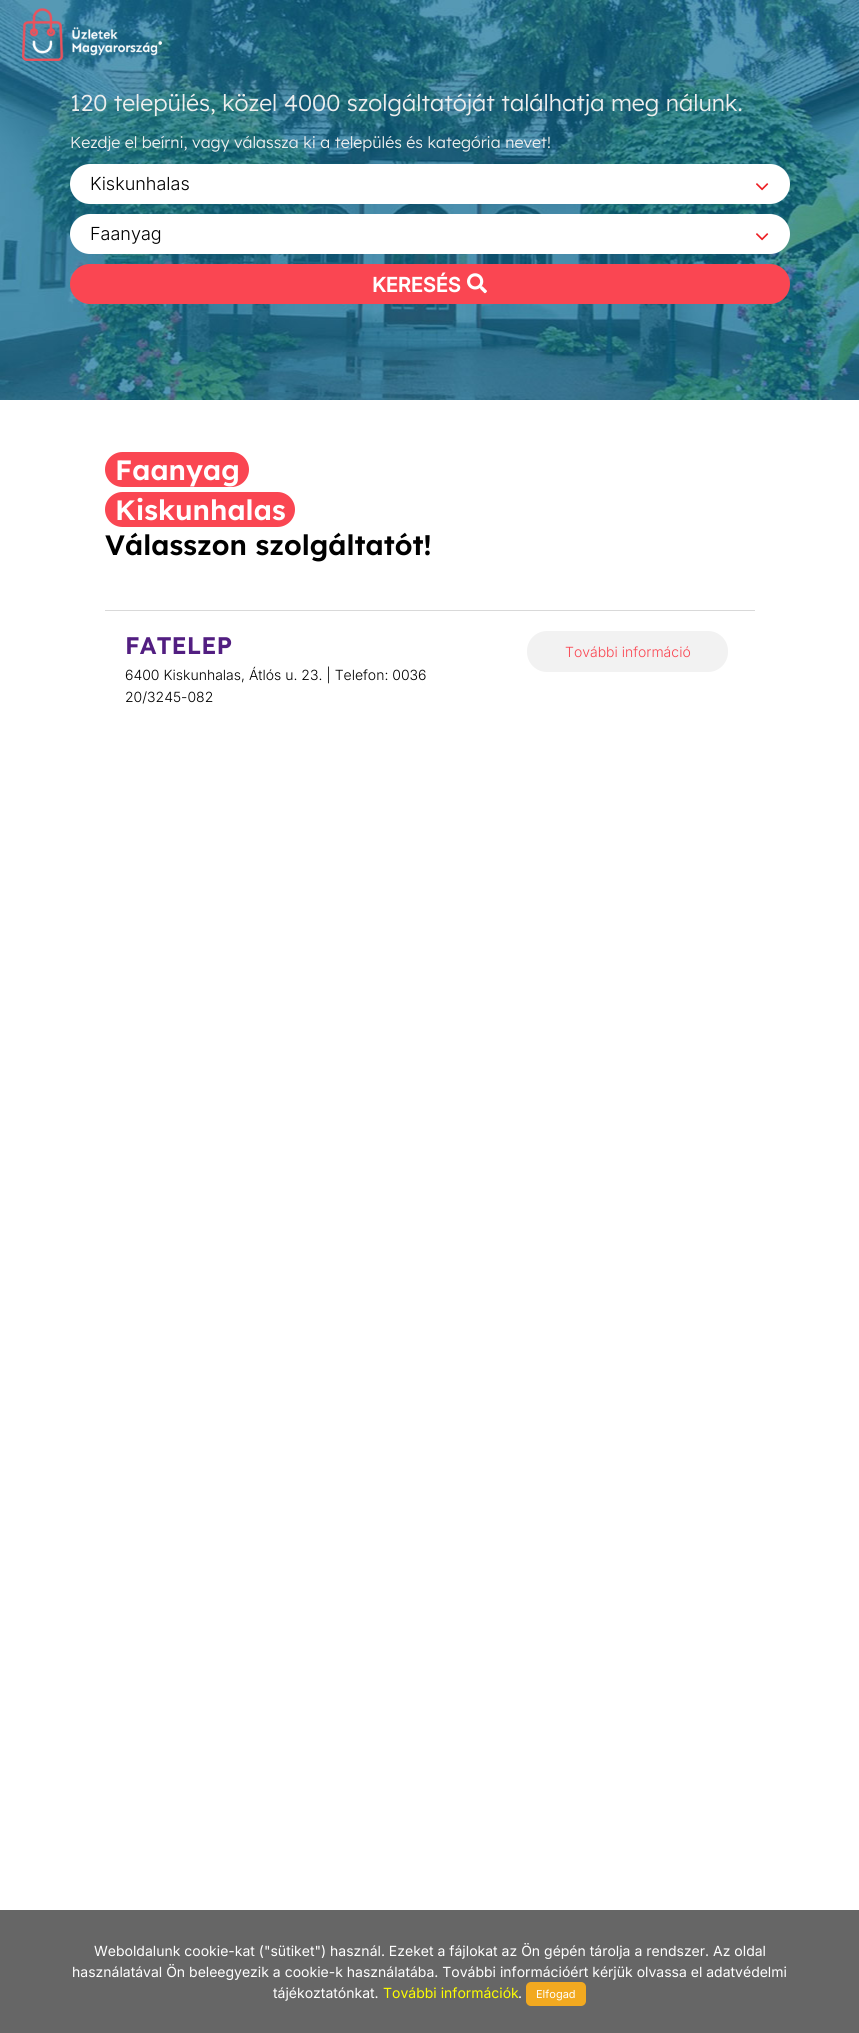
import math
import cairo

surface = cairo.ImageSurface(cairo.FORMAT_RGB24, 859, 2033)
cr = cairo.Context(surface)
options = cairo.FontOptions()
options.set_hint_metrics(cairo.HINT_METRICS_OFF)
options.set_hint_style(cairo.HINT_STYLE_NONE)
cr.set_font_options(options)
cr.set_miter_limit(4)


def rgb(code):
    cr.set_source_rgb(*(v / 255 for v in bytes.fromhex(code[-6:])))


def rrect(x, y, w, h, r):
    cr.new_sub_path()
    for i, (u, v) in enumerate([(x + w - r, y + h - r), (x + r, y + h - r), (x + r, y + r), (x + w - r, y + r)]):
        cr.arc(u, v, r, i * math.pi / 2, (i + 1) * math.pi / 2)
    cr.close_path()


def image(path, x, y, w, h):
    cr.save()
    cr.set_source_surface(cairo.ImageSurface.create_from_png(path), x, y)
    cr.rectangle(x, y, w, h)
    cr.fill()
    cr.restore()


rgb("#ffffff")
cr.paint()
image("img/2.png", 0, 0, 859, 400)
image("img/1.png", 22, 8, 140, 53)
rgb("#ffffff")
rrect(70, 164, 720, 40, 20)
cr.fill()
image("img/3.png", 756, 183, 13, 8)
rrect(70, 214, 720, 40, 20)
cr.fill()
image("img/3.png", 756, 233, 13, 8)
rgb("#fa4652")
rrect(70, 264, 720, 40, 20)
cr.fill()
image("img/4.png", 467, 273, 20, 21)
rrect(105, 452, 144, 35, 17.5)
cr.fill()
rrect(105, 492, 190, 35, 17.5)
cr.fill()
rgb("#d9d9d9")
cr.rectangle(105, 610, 650, 1)
cr.fill()
rgb("#f2f2f2")
rrect(527, 631, 201, 41, 20)
cr.fill()
rgb("#666666")
cr.rectangle(0, 1910, 859, 123)
cr.fill()
rgb("#f2a920")
rrect(526, 1982, 60, 24, 5)
cr.fill()
cr.select_font_face("Lexend Light")
cr.set_font_size(23)
rgb("#eeeeee")
cr.move_to(70, 111)
cr.show_text("120 település, közel 4000 szolgáltatóját találhatja meg nálunk.")
cr.set_font_size(16)
cr.move_to(70, 148)
cr.show_text("Kezdje el beírni, vagy válassza ki a település és kategória nevet!")
cr.select_font_face("Inter Light")
cr.set_font_size(18)
rgb("#000000")
cr.move_to(90, 190)
cr.show_text("Kiskunhalas")
cr.move_to(90, 240)
cr.show_text("Faanyag")
cr.select_font_face("Inter", cairo.FONT_SLANT_NORMAL, cairo.FONT_WEIGHT_BOLD)
cr.set_font_size(20)
rgb("#ffffff")
cr.move_to(372, 292)
cr.show_text("KERESÉS")
cr.select_font_face("Lexend SemiBold")
cr.set_font_size(28)
cr.move_to(115, 480)
cr.show_text("Faanyag")
cr.move_to(115, 520)
cr.show_text("Kiskunhalas")
rgb("#000000")
cr.move_to(105, 555)
cr.show_text("Válasszon szolgáltatót!")
cr.set_font_size(24)
rgb("#521e81")
cr.move_to(125, 654)
cr.show_text("FATELEP")
cr.select_font_face("Inter Light")
cr.set_font_size(14)
rgb("#000000")
cr.move_to(125, 680)
cr.show_text("6400 Kiskunhalas, Átlós u. 23. | Telefon: 0036")
cr.move_to(125, 702)
cr.show_text("20/3245-082")
rgb("#fa4652")
cr.move_to(565, 657)
cr.show_text("További információ")
cr.select_font_face("Inter")
rgb("#ffffff")
for x, y, s in [
    (94, 1956, "Weboldalunk cookie-kat (\"sütiket\") használ. Ezeket a fájlokat az Ön gépén tárolja a rendszer. Az oldal"),
    (72, 1977, "használatával Ön beleegyezik a cookie-k használatába. További információért kérjük olvassa el adatvédelmi"),
    (273, 1998, "tájékoztatónkat."),
]:
    cr.move_to(x, y)
    cr.show_text(s)
rgb("#ffff00")
cr.move_to(383, 1998)
cr.show_text("További információk")
rgb("#ffffff")
cr.move_to(518, 1998)
cr.show_text(".")
cr.set_font_size(11)
cr.move_to(536, 1998)
cr.show_text("Elfogad")
surface.write_to_png("page.png")
